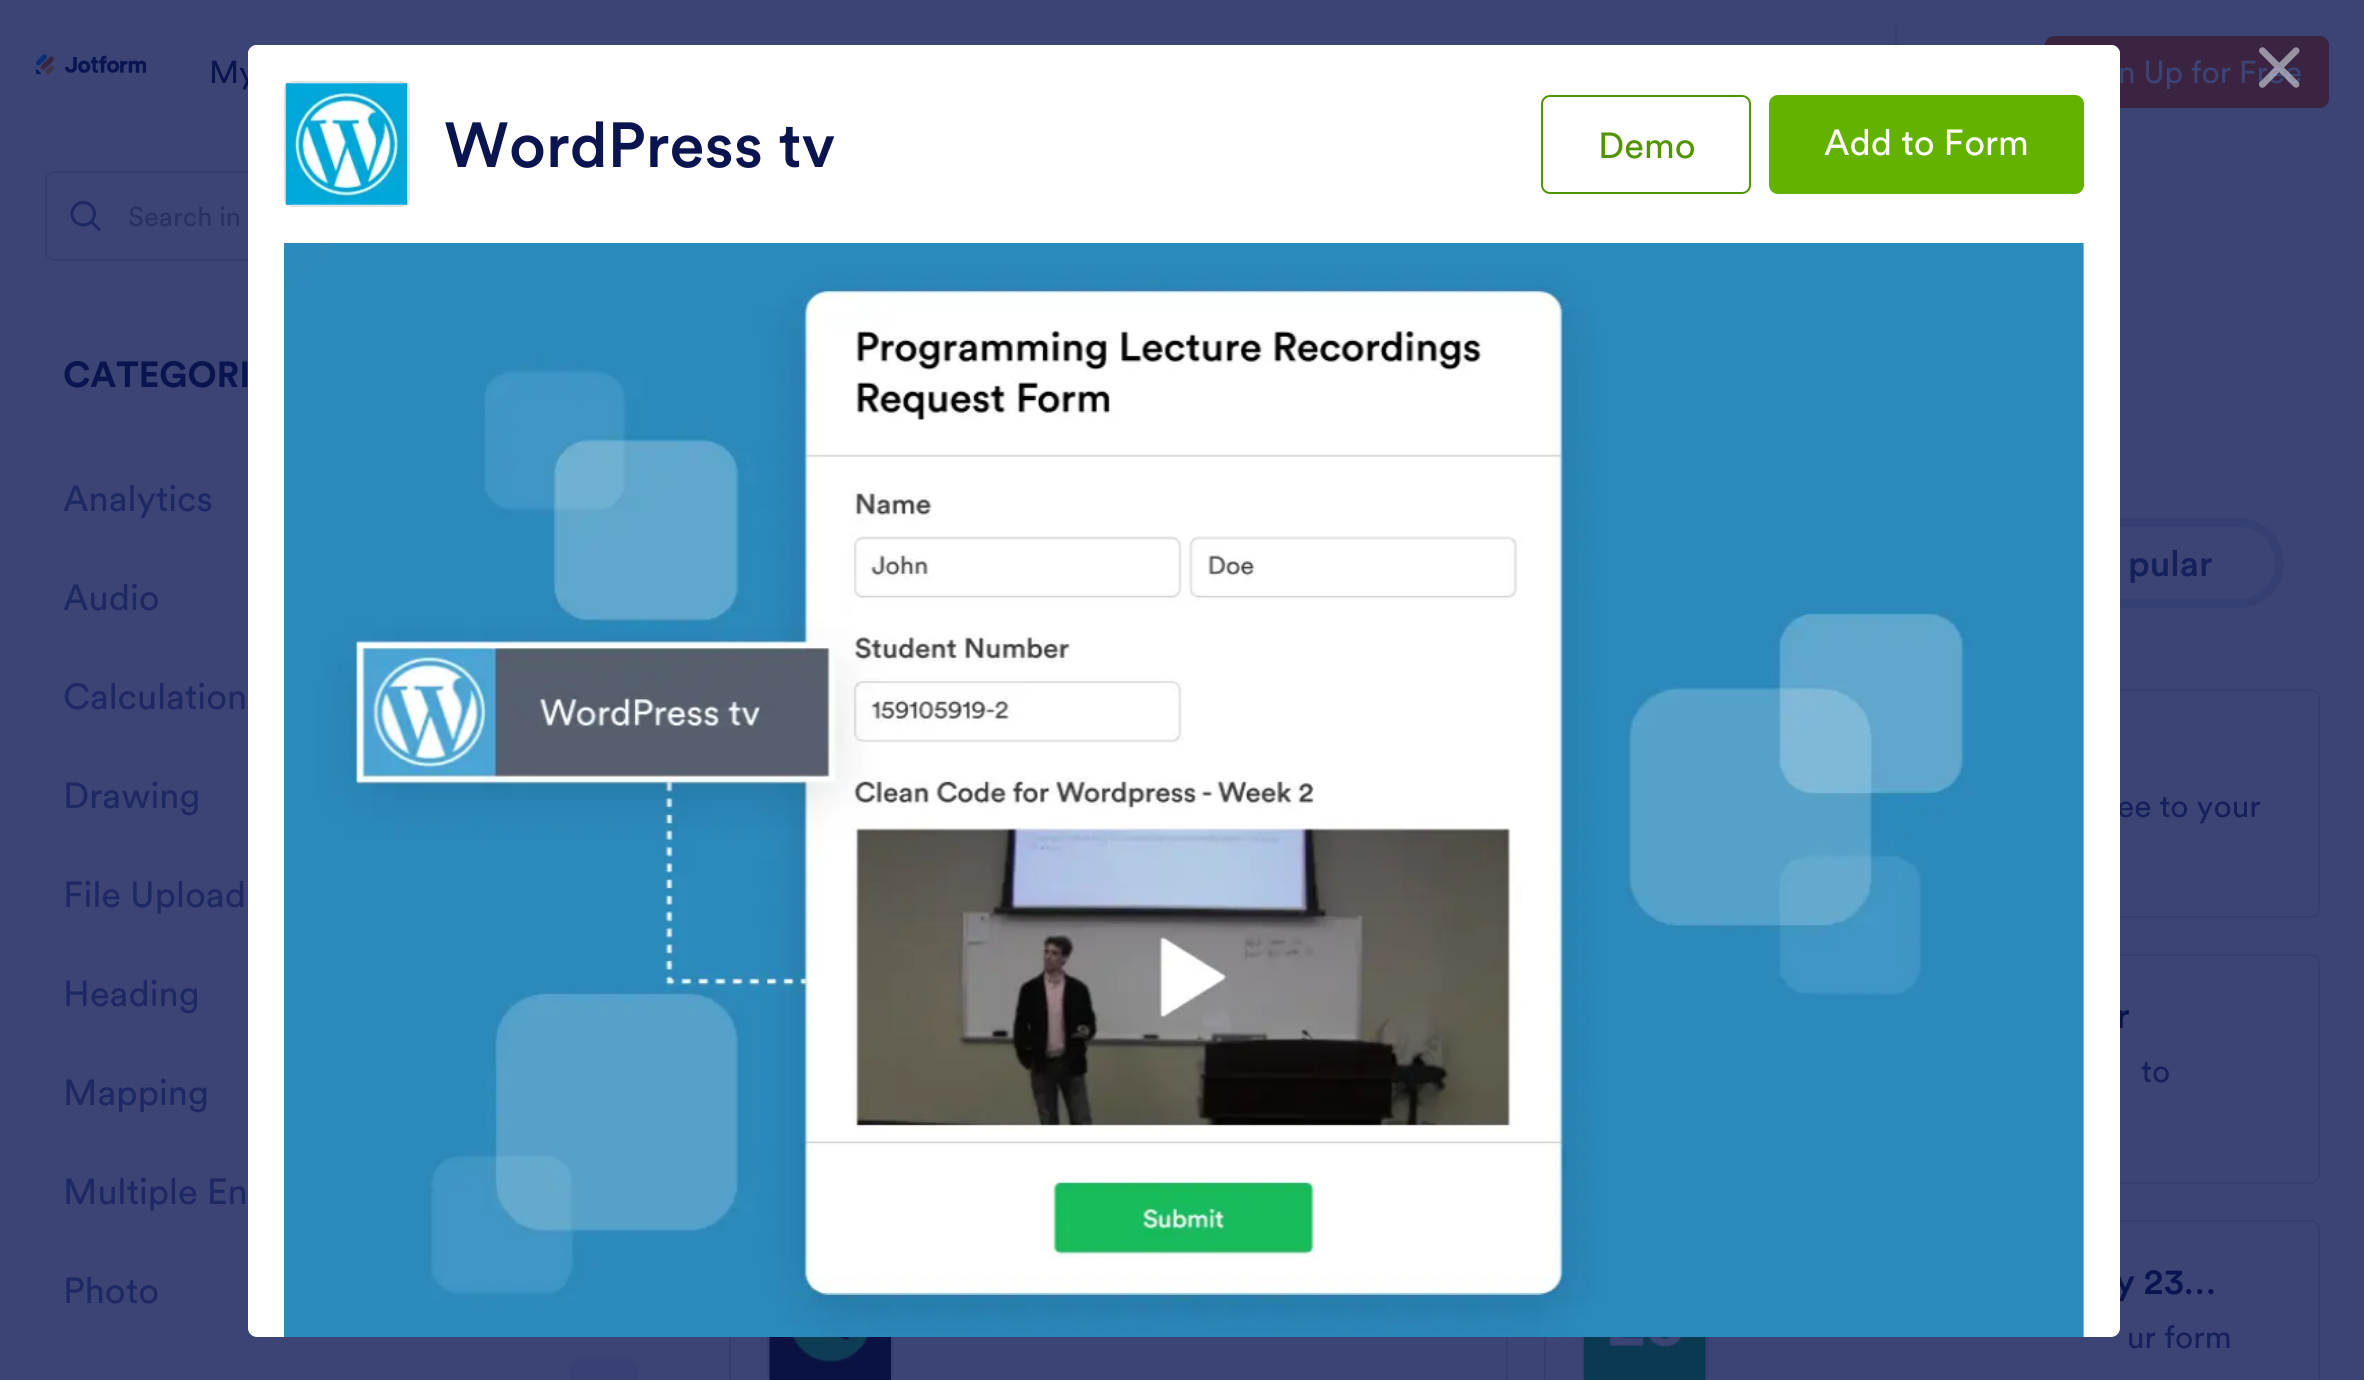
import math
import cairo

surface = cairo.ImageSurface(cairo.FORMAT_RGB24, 2364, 1380)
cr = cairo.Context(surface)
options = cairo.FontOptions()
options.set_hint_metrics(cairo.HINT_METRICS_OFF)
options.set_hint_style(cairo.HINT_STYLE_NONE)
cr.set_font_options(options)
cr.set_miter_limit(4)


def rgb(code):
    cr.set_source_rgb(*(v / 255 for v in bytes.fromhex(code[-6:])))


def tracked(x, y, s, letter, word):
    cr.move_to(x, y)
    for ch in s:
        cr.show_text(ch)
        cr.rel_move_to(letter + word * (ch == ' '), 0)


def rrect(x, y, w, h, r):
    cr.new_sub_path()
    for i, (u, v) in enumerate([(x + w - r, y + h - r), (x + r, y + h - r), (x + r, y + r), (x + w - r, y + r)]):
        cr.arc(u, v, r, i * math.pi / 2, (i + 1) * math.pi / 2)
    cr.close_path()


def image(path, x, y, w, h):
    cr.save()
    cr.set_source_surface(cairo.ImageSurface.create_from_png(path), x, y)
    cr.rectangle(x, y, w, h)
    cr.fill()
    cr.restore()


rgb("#3b4474")
cr.paint()
image("img/1.png", 36, 54, 110, 21)
rgb("#353f72")
cr.rectangle(1895, 27, 2, 18)
cr.fill()
rgb("#3b2441")
rrect(2045, 36, 284, 72, 9)
cr.fill()
rrect(46, 172, 610, 88, 8)
rgb("#343d71")
cr.stroke()
image("img/6.png", 70, 201, 31, 30)
rgb("#394174")
rrect(569, 1359, 70, 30, 9)
cr.fill()
rgb("#353f72")
rrect(1762, 518, 522, 90, 45)
cr.fill()
rgb("#3b4474")
rrect(2023, 527, 252, 72, 36)
cr.fill()
rrect(1545, 690, 774, 227, 8)
rgb("#353e6f")
cr.stroke()
rrect(1545, 955, 774, 228, 8)
cr.stroke()
cr.rectangle(730, 1221, 777, 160)
cr.stroke()
image("img/7.png", 767, 1337, 126, 43)
rrect(768, 1259, 124, 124, 8)
cr.stroke()
image("img/8.png", 769, 1337, 122, 43)
rrect(1545, 1221, 774, 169, 8)
cr.stroke()
image("img/9.png", 1582, 1375, 126, 5)
rrect(1583, 1259, 124, 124, 8)
cr.stroke()
rgb("#3b4474")
cr.rectangle(1705, 1376, 1, 4)
cr.fill()
image("img/10.png", 1584, 1337, 122, 43)
cr.select_font_face("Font")
cr.set_font_size(31.5)
rgb("#0a144e")
cr.move_to(209, 83)
cr.show_text("My")
rgb("#3b4474")
tracked(2118, 83, "n Up for Free", -0.2, 0)
image("img/2.png", 2259, 47, 41, 41)
cr.set_font_size(27)
rgb("#273164")
cr.move_to(128, 226)
cr.show_text("Search in")
cr.select_font_face("Font", cairo.FONT_SLANT_NORMAL, cairo.FONT_WEIGHT_BOLD)
cr.set_font_size(36)
rgb("#0a144e")
cr.move_to(63, 387)
cr.show_text("CATEGORI")
cr.select_font_face("Font")
rgb("#1e2862")
for x, y, s in [
    (63, 511, "Analytics"),
    (63, 610, "Audio"),
    (63, 709, "Calculation"),
    (63, 808, "Drawing"),
    (63, 907, "File Upload"),
    (63, 1006, "Heading"),
    (63, 1105, "Mapping"),
    (63, 1204, "Multiple En"),
    (63, 1303, "Photo"),
]:
    cr.move_to(x, y)
    cr.show_text(s)
cr.select_font_face("Font Medium")
rgb("#16205a")
cr.move_to(2128, 576)
cr.show_text("pular")
cr.select_font_face("Font")
cr.set_font_size(31.5)
cr.move_to(2117, 817)
cr.show_text("ee to your")
cr.select_font_face("Font Medium")
cr.set_font_size(36)
rgb("#0a144e")
cr.move_to(2116, 1028)
cr.show_text("r")
cr.select_font_face("Font")
cr.set_font_size(31.5)
rgb("#16205a")
cr.move_to(2141, 1082)
cr.show_text("to")
cr.select_font_face("Font Medium")
cr.set_font_size(36)
rgb("#0a144e")
cr.move_to(2115, 1294)
cr.show_text("y 23…")
rgb("#ffffff")
rrect(248, 45, 1872, 1292, 9)
cr.fill()
rgb("#e2e3e9")
cr.rectangle(2083, 243, 1, 1094)
cr.fill()
image("img/5.png", 284, 243, 1800, 1094)
rgb("#ffffff")
cr.new_path()
cr.move_to(257, 45)
cr.line_to(2111, 45)
cr.curve_to(2116, 45, 2120, 49, 2120, 54)
cr.line_to(2120, 243)
cr.line_to(248, 243)
cr.line_to(248, 54)
cr.curve_to(248, 49, 252, 45, 257, 45)
cr.close_path()
cr.fill()
rgb("#64b200")
rrect(1769, 95, 315, 99, 9)
cr.fill()
cr.select_font_face("Font")
rgb("#ffffff")
cr.move_to(1824, 155)
cr.show_text("Add to Form")
rrect(1542, 96, 208, 97, 8)
rgb("#529300")
cr.stroke()
cr.move_to(1598, 158)
cr.show_text("Demo")
cr.select_font_face("Font Medium")
cr.set_font_size(63)
rgb("#0a144e")
cr.move_to(444, 167)
cr.show_text("WordPress tv")
image("img/3.png", 283, 81, 126, 126)
rrect(285, 82, 124, 124, 8)
rgb("#e2e3e9")
cr.stroke()
image("img/4.png", 285, 83, 123, 122)
cr.select_font_face("Font")
cr.set_font_size(31.5)
rgb("#16205a")
cr.move_to(2127, 1348)
cr.show_text("ur form")
surface.write_to_png("page.png")
